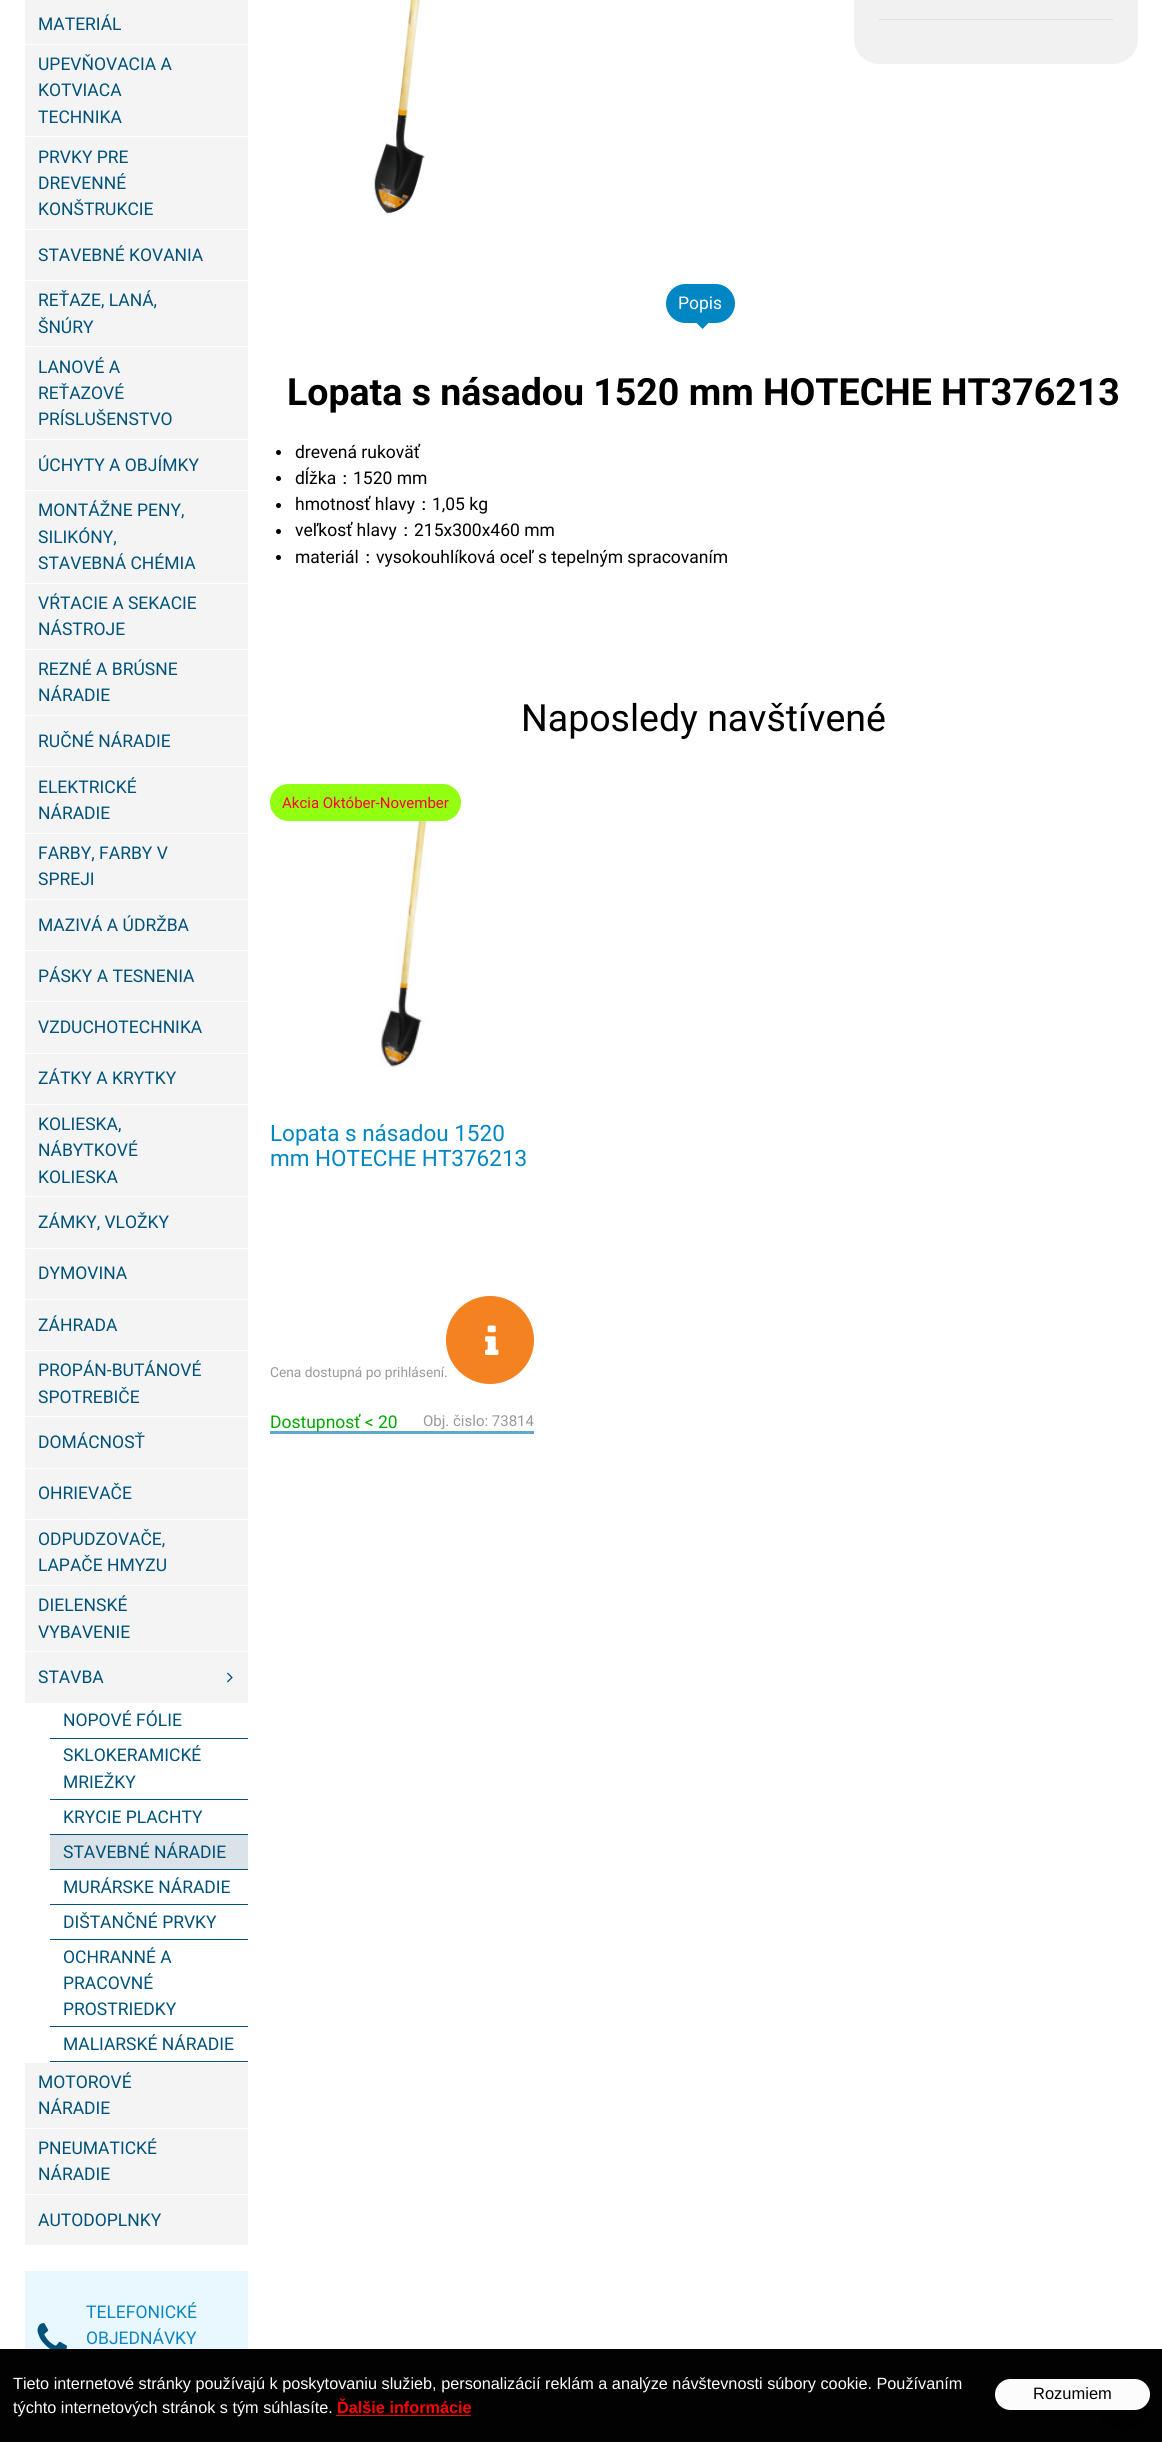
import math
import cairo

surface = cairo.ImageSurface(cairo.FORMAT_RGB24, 1162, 2442)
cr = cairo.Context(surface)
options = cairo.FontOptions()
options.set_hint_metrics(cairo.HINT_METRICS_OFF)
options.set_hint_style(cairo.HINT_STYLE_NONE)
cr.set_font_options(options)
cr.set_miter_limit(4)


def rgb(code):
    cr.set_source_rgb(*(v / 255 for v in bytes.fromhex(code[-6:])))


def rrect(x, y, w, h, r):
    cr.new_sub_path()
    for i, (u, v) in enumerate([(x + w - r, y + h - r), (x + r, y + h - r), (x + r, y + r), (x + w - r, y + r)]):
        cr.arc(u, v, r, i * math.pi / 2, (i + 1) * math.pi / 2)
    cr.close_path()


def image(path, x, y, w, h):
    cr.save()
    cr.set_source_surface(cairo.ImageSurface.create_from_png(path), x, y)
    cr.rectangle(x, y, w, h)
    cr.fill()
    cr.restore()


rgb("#ffffff")
cr.paint()
for x, y, w, h, color in [
    (25, 0, 223, 44, "#f4f4f4"),
    (25, 45, 223, 184, "#f4f4f4"),
    (25, 136, 223, 1, "#ffffff"),
    (25, 230, 223, 50, "#f4f4f4"),
    (25, 281, 223, 158, "#f4f4f4"),
    (25, 346, 223, 1, "#ffffff"),
    (25, 440, 223, 50, "#f4f4f4"),
    (25, 491, 223, 92, "#f4f4f4"),
    (25, 584, 223, 65, "#f4f4f4"),
    (25, 650, 223, 65, "#f4f4f4"),
    (25, 716, 223, 117, "#f4f4f4"),
    (25, 766, 223, 1, "#ffffff"),
    (25, 834, 223, 65, "#f4f4f4"),
    (25, 900, 223, 50, "#f4f4f4"),
    (25, 951, 223, 102, "#f4f4f4"),
    (25, 1001, 223, 1, "#ffffff"),
    (25, 1054, 223, 50, "#f4f4f4"),
    (25, 1105, 223, 143, "#f4f4f4"),
    (25, 1196, 223, 1, "#ffffff"),
    (25, 1249, 223, 50, "#f4f4f4"),
    (25, 1300, 223, 50, "#f4f4f4"),
    (25, 1351, 223, 117, "#f4f4f4"),
    (25, 1416, 223, 1, "#ffffff"),
    (25, 1469, 223, 50, "#f4f4f4"),
    (25, 1520, 223, 65, "#f4f4f4"),
    (25, 1586, 223, 117, "#f4f4f4"),
    (25, 1651, 223, 1, "#ffffff"),
]:
    rgb(color)
    cr.rectangle(x, y, w, h)
    cr.fill()
image("img/1.png", 227, 1672, 6, 11)
for x, y, w, h, color in [
    (50, 1738, 198, 1, "#00527b"),
    (50, 1799, 198, 1, "#00527b"),
    (50, 1834, 198, 1, "#00527b"),
    (50, 1835, 198, 34, "#dbe3e8"),
    (50, 1869, 198, 1, "#00527b"),
    (50, 1904, 198, 1, "#00527b"),
    (50, 1939, 198, 1, "#00527b"),
    (50, 2026, 198, 1, "#00527b"),
    (50, 2061, 198, 1, "#00527b"),
    (25, 2063, 223, 65, "#f4f4f4"),
    (25, 2129, 223, 65, "#f4f4f4"),
    (25, 2195, 223, 50, "#f4f4f4"),
    (25, 2271, 223, 171, "#e9f8ff"),
]:
    rgb(color)
    cr.rectangle(x, y, w, h)
    cr.fill()
image("img/2.png", 37, 2323, 30, 30)
image("img/3.png", 374, 0, 51, 214)
rgb("#f1f1f1")
rrect(854, -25, 284, 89, 25)
cr.fill()
rgb("#dddddd")
cr.rectangle(879, 19, 234, 1)
cr.fill()
rgb("#0086c3")
rrect(666, 284, 69, 39, 19.5)
cr.fill()
cr.new_path()
cr.move_to(696, 322.5)
cr.line_to(709, 322.5)
cr.line_to(702.5, 329)
cr.close_path()
cr.fill()
rgb("#000000")
cr.arc(278.5, 452.5, 2.5, 0, 2 * math.pi)
cr.fill()
cr.arc(278.5, 478.5, 2.5, 0, 2 * math.pi)
cr.fill()
cr.arc(278.5, 505.5, 2.5, 0, 2 * math.pi)
cr.fill()
cr.arc(278.5, 531.5, 2.5, 0, 2 * math.pi)
cr.fill()
cr.arc(278.5, 557.5, 2.5, 0, 2 * math.pi)
cr.fill()
rgb("#5ca9cc")
cr.rectangle(270, 1431, 264, 3)
cr.fill()
rgb("#93ff11")
rrect(270, 784, 191, 37, 18.5)
cr.fill()
image("img/4.png", 379, 821, 57, 247)
rgb("#797979")
cr.arc(1122, 2402, 28, 0, 2 * math.pi)
cr.fill()
cr.set_source_rgba(0, 0, 0, 0.99)
cr.rectangle(0, 2349, 1162, 93)
cr.fill()
rgb("#fcfcfc")
rrect(995, 2379, 155, 31, 15.5)
cr.fill()
rgb("#ff0303")
cr.rectangle(336, 2415, 135, 1)
cr.fill()
cr.select_font_face("Roboto")
cr.set_font_size(17.5)
rgb("#00527b")
for x, y, s in [
    (38, 30, "MATERIÁL"),
    (38, 70, "UPEVŇOVACIA A"),
    (38, 96, "KOTVIACA"),
    (38, 123, "TECHNIKA"),
    (38, 163, "PRVKY PRE"),
    (38, 189, "DREVENNÉ"),
    (38, 215, "KONŠTRUKCIE"),
    (38, 261, "STAVEBNÉ KOVANIA"),
    (38, 306, "REŤAZE, LANÁ,"),
    (38, 333, "ŠNÚRY"),
    (38, 373, "LANOVÉ A"),
    (38, 399, "REŤAZOVÉ"),
    (38, 425, "PRÍSLUŠENSTVO"),
    (38, 471, "ÚCHYTY A OBJÍMKY"),
    (38, 516, "MONTÁŽNE PENY,"),
    (38, 543, "SILIKÓNY,"),
    (38, 569, "STAVEBNÁ CHÉMIA"),
    (38, 609, "VŔTACIE A SEKACIE"),
    (38, 635, "NÁSTROJE"),
    (38, 675, "REZNÉ A BRÚSNE"),
    (38, 701, "NÁRADIE"),
    (38, 747, "RUČNÉ NÁRADIE"),
    (38, 793, "ELEKTRICKÉ"),
    (38, 819, "NÁRADIE"),
    (38, 859, "FARBY, FARBY V"),
    (38, 885, "SPREJI"),
    (38, 931, "MAZIVÁ A ÚDRŽBA"),
    (38, 982, "PÁSKY A TESNENIA"),
    (38, 1033, "VZDUCHOTECHNIKA"),
    (38, 1084, "ZÁTKY A KRYTKY"),
    (38, 1130, "KOLIESKA,"),
    (38, 1156, "NÁBYTKOVÉ"),
    (38, 1183, "KOLIESKA"),
    (38, 1228, "ZÁMKY, VLOŽKY"),
    (38, 1279, "DYMOVINA"),
    (38, 1331, "ZÁHRADA"),
    (38, 1376, "PROPÁN-BUTÁNOVÉ"),
    (38, 1403, "SPOTREBIČE"),
    (38, 1448, "DOMÁCNOSŤ"),
    (38, 1499, "OHRIEVAČE"),
    (38, 1545, "ODPUDZOVAČE,"),
    (38, 1571, "LAPAČE HMYZU"),
    (38, 1611, "DIELENSKÉ"),
    (38, 1638, "VYBAVENIE"),
    (38, 1683, "STAVBA"),
    (63, 1726, "NOPOVÉ FÓLIE"),
    (63, 1761, "SKLOKERAMICKÉ"),
    (63, 1788, "MRIEŽKY"),
    (63, 1823, "KRYCIE PLACHTY"),
    (63, 1858, "STAVEBNÉ NÁRADIE"),
    (63, 1893, "MURÁRSKE NÁRADIE"),
    (63, 1928, "DIŠTANČNÉ PRVKY"),
    (63, 1963, "OCHRANNÉ A"),
    (63, 1989, "PRACOVNÉ"),
    (63, 2015, "PROSTRIEDKY"),
    (63, 2050, "MALIARSKÉ NÁRADIE"),
    (38, 2088, "MOTOROVÉ"),
    (38, 2114, "NÁRADIE"),
    (38, 2154, "PNEUMATICKÉ"),
    (38, 2180, "NÁRADIE"),
    (38, 2226, "AUTODOPLNKY"),
]:
    cr.move_to(x, y)
    cr.show_text(s)
rgb("#0f86c3")
cr.move_to(86, 2318)
cr.show_text("TELEFONICKÉ")
cr.move_to(86, 2344)
cr.show_text("OBJEDNÁVKY")
rgb("#ffffff")
cr.move_to(678, 309)
cr.show_text("Popis")
cr.select_font_face("Roboto", cairo.FONT_SLANT_NORMAL, cairo.FONT_WEIGHT_BOLD)
cr.set_font_size(37.5)
rgb("#000000")
cr.move_to(287, 405)
cr.show_text("Lopata s násadou 1520 mm HOTECHE HT376213")
cr.select_font_face("Roboto")
cr.set_font_size(17.5)
cr.move_to(295, 458)
cr.show_text("drevená rukoväť")
cr.move_to(295, 484)
cr.show_text("dĺžka")
cr.select_font_face("WenQuanYi Zen Hei Medium")
cr.move_to(336, 484)
cr.show_text("：")
cr.select_font_face("Roboto")
cr.move_to(353, 484)
cr.show_text("1520 mm")
cr.move_to(295, 510)
cr.show_text("hmotnosť hlavy")
cr.select_font_face("WenQuanYi Zen Hei Medium")
cr.move_to(415, 510)
cr.show_text("：")
cr.select_font_face("Roboto")
cr.move_to(432, 510)
cr.show_text("1,05 kg")
cr.move_to(295, 536)
cr.show_text("veľkosť hlavy")
cr.select_font_face("WenQuanYi Zen Hei Medium")
cr.move_to(397, 536)
cr.show_text("：")
cr.select_font_face("Roboto")
cr.move_to(414, 536)
cr.show_text("215x300x460 mm")
cr.move_to(295, 563)
cr.show_text("materiál")
cr.select_font_face("WenQuanYi Zen Hei Medium")
cr.move_to(359, 563)
cr.show_text("：")
cr.select_font_face("Roboto")
cr.move_to(376, 563)
cr.show_text("vysokouhlíková oceľ s tepelným spracovaním")
cr.set_font_size(37.5)
cr.move_to(521, 731)
cr.show_text("Naposledy navštívené")
cr.set_font_size(15)
rgb("#ff0033")
cr.move_to(282, 808)
cr.show_text("Akcia Október-November")
cr.set_font_size(22.5)
rgb("#0086c3")
cr.move_to(270, 1141)
cr.show_text("Lopata s násadou 1520")
cr.move_to(270, 1166)
cr.show_text("mm HOTECHE HT376213")
cr.set_font_size(13.75)
rgb("#999999")
cr.move_to(270, 1377)
cr.show_text("Cena dostupná po prihlásení.")
rgb("#f58220")
cr.new_path()
cr.arc(490, 1340, 43.5, 0, 2 * math.pi)
cr.fill_preserve()
cr.set_line_width(1)
cr.stroke()
image("img/5.png", 485, 1325, 14, 30)
cr.set_font_size(17.5)
rgb("#00aa00")
cr.move_to(270, 1428)
cr.show_text("Dostupnosť < 20")
cr.set_font_size(15)
rgb("#999999")
cr.move_to(423, 1426)
cr.show_text("Obj. čislo: 73814")
cr.select_font_face("Liberation Sans")
cr.set_font_size(16.25)
rgb("#ffffff")
cr.move_to(13, 2389)
cr.show_text("Tieto internetové stránky používajú k poskytovaniu služieb, personalizácií reklám a analýze návštevnosti súbory cookie. Používaním")
cr.set_font_size(16.5)
rgb("#000000")
cr.move_to(1033, 2399)
cr.show_text("Rozumiem")
cr.set_font_size(16.25)
rgb("#ffffff")
cr.move_to(13, 2413)
cr.show_text("týchto internetových stránok s tým súhlasíte.")
cr.select_font_face("Liberation Sans", cairo.FONT_SLANT_NORMAL, cairo.FONT_WEIGHT_BOLD)
rgb("#ff0303")
cr.move_to(337, 2413)
cr.show_text("Ďalšie informácie")
surface.write_to_png("page.png")
